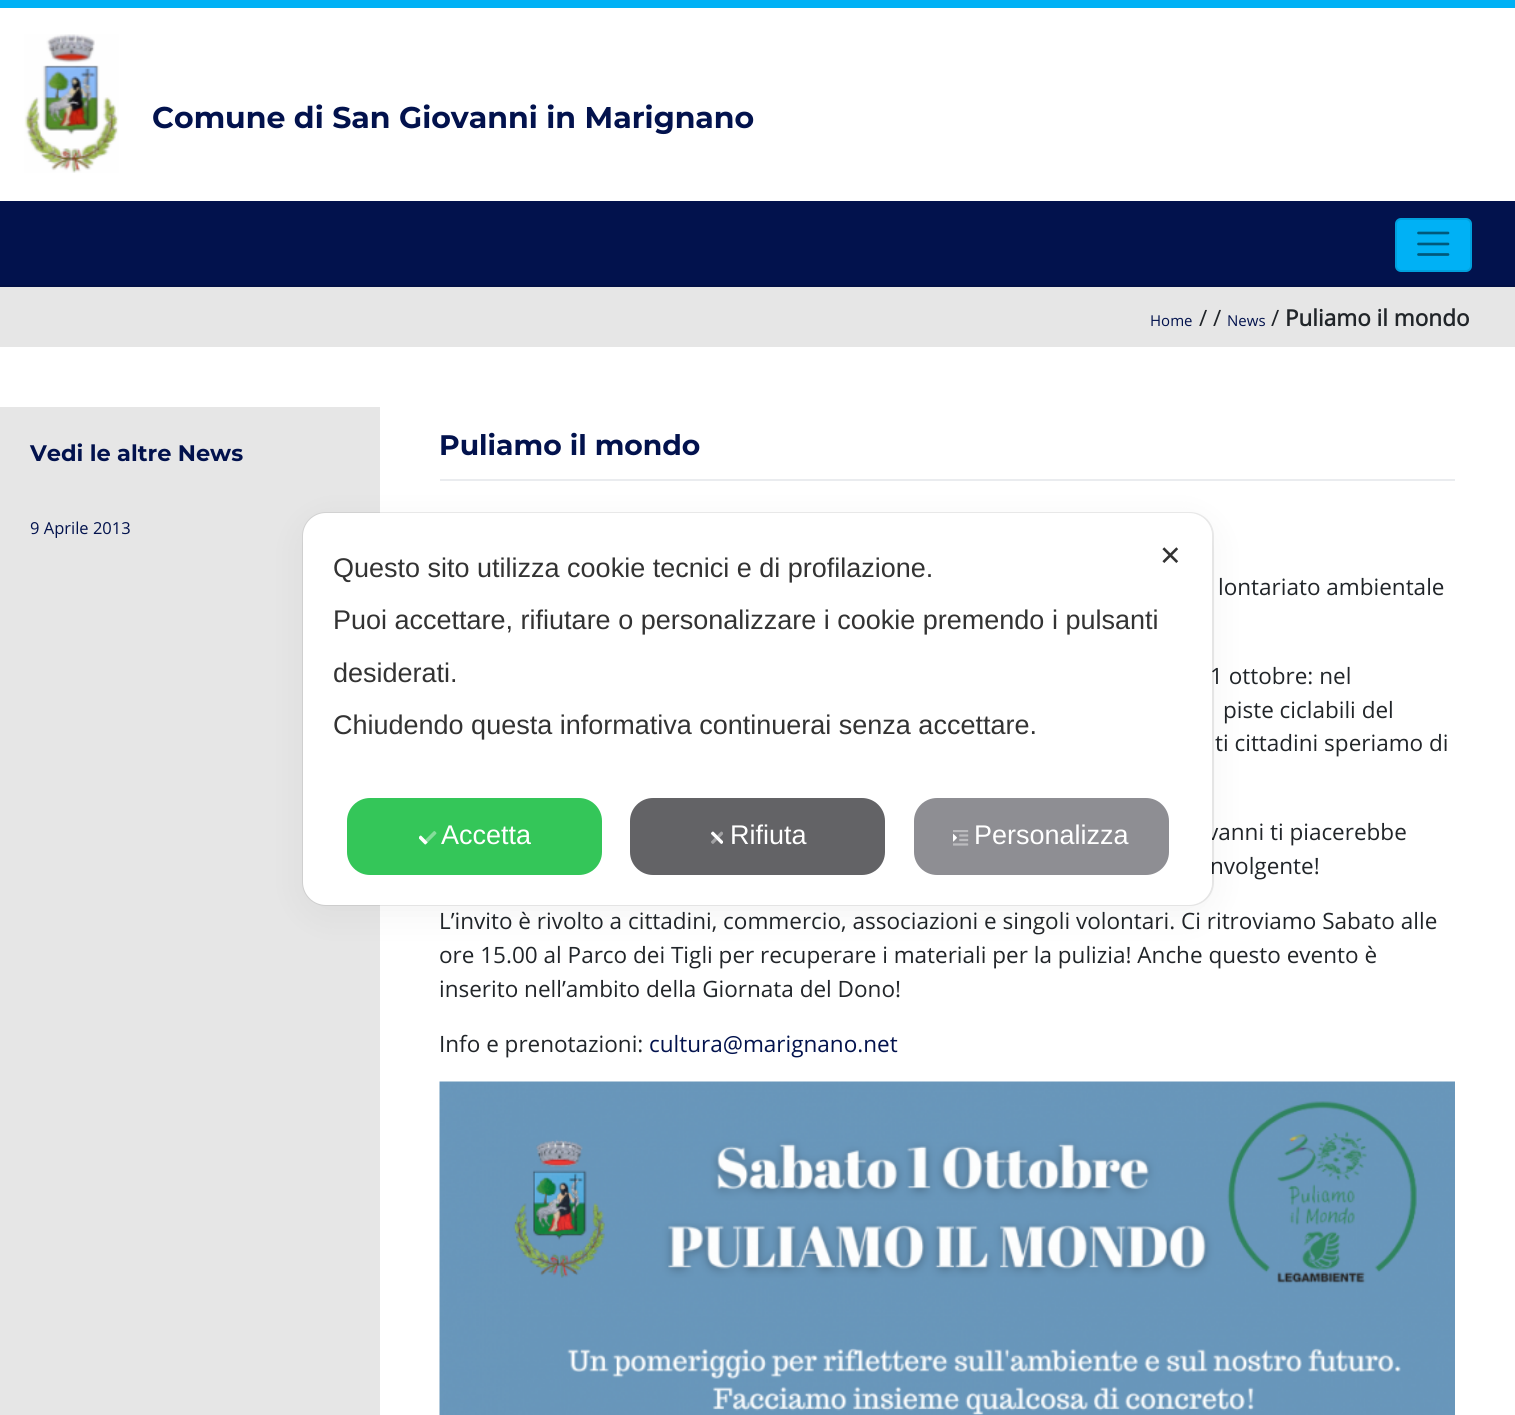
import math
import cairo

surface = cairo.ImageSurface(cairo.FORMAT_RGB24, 1515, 1415)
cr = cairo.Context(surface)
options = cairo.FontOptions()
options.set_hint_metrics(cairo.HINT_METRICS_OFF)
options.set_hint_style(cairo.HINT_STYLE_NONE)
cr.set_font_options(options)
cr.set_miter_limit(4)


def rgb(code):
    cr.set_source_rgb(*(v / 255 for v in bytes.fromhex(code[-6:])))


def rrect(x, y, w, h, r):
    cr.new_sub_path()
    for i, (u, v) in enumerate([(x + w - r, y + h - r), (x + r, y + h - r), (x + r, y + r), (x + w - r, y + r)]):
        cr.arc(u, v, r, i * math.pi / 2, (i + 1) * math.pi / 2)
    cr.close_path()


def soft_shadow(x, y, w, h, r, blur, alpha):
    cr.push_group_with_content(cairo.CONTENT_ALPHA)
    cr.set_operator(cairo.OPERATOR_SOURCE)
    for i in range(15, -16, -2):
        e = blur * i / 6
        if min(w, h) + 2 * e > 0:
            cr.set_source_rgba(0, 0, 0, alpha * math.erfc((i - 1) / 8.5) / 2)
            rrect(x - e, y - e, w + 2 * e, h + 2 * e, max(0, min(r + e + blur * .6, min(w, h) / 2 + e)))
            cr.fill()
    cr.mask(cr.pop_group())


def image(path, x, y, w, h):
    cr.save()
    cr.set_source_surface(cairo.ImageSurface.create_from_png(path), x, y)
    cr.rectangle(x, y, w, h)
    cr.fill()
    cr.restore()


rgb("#ffffff")
cr.paint()
rgb("#00b1f5")
cr.rectangle(0, 0, 1515, 8)
cr.fill()
image("img/1.png", 24, 34, 95, 139)
rgb("#02124d")
cr.rectangle(0, 201, 1515, 84)
cr.fill()
rgb("#021045")
cr.rectangle(0, 285, 1515, 2)
cr.fill()
rgb("#00b1f5")
rrect(1395, 218, 77, 54, 6)
cr.fill()
rrect(1396, 219, 75, 52, 5)
cr.set_source_rgba(0, 0, 0, 0.1)
cr.stroke()
cr.new_path()
cr.move_to(1418.5, 233)
cr.line_to(1448, 233)
cr.move_to(1418.5, 244)
cr.line_to(1448, 244)
cr.move_to(1418.5, 254.5)
cr.line_to(1448, 254.5)
rgb("#00597b")
cr.set_line_width(2.7)
cr.set_line_cap(cairo.LINE_CAP_ROUND)
cr.stroke()
for x, y, w, h, color in [
    (0, 287, 1515, 60, "#e6e6e6"),
    (0, 407, 380, 1008, "#e6e6e6"),
    (440, 479, 1015, 2, "#eaecef"),
]:
    rgb(color)
    cr.rectangle(x, y, w, h)
    cr.fill()
image("img/2.png", 439, 1081, 1016, 334)
cr.select_font_face("Montserrat", cairo.FONT_SLANT_NORMAL, cairo.FONT_WEIGHT_BOLD)
cr.set_font_size(30)
rgb("#02124d")
cr.move_to(152, 128)
cr.show_text("Comune di San Giovanni in Marignano")
cr.select_font_face("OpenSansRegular")
cr.set_font_size(15)
cr.move_to(1150, 326)
cr.show_text("Home")
cr.set_font_size(22.5)
rgb("#212529")
cr.move_to(1199, 326)
cr.show_text("/ /")
cr.set_font_size(15)
rgb("#02124d")
cr.move_to(1227, 326)
cr.show_text("News")
cr.set_font_size(22.5)
rgb("#212529")
cr.move_to(1271, 326)
cr.show_text("/")
cr.select_font_face("OpenSansRegular", cairo.FONT_SLANT_NORMAL, cairo.FONT_WEIGHT_BOLD)
cr.move_to(1285, 326)
cr.show_text("Puliamo il mondo")
cr.select_font_face("Montserrat", cairo.FONT_SLANT_NORMAL, cairo.FONT_WEIGHT_BOLD)
rgb("#02124d")
cr.move_to(30, 461)
cr.show_text("Vedi le altre News")
cr.select_font_face("OpenSansRegular")
cr.set_font_size(16.5)
cr.move_to(30, 534)
cr.show_text("9 Aprile 2013")
cr.select_font_face("Montserrat", cairo.FONT_SLANT_NORMAL, cairo.FONT_WEIGHT_BOLD)
cr.set_font_size(28.25)
cr.move_to(439, 455)
cr.show_text("Puliamo il mondo")
cr.select_font_face("OpenSansRegular")
cr.set_font_size(22.5)
rgb("#212529")
for x, y, s in [
    (1218, 595, "lontariato ambientale"),
    (1210, 684, "1 ottobre: nel"),
    (1223, 718, "piste ciclabili del"),
    (1215, 751, "ti cittadini speriamo di"),
    (1207, 840, "vanni ti piacerebbe"),
    (1210, 874, "nvolgente!"),
    (439, 929, "L’invito è rivolto a cittadini, commercio, associazioni e singoli volontari. Ci ritroviamo Sabato alle"),
    (439, 963, "ore 15.00 al Parco dei Tigli per recuperare i materiali per la pulizia! Anche questo evento è"),
    (439, 997, "inserito nell’ambito della Giornata del Dono!"),
    (439, 1052, "Info e prenotazioni:"),
]:
    cr.move_to(x, y)
    cr.show_text(s)
rgb("#02124d")
cr.move_to(649, 1052)
cr.show_text("cultura@marignano.net")
rrect(303, 513, 910, 392, 23)
cr.set_source_rgba(0, 0, 0, 0.08)
cr.set_line_width(2)
cr.set_line_cap(cairo.LINE_CAP_BUTT)
cr.stroke()
rgb("#000000")
soft_shadow(303, 522, 909, 392, 23, 18, 0.05)
rgb("#ffffff")
rrect(303, 513, 909, 392, 23)
cr.fill()
cr.select_font_face("DejaVu Sans")
cr.set_font_size(27)
rgb("#333333")
cr.move_to(1159, 565)
cr.show_text("✕")
cr.select_font_face("Liberation Sans")
for x, y, s in [
    (333, 577, "Questo sito utilizza cookie tecnici e di profilazione."),
    (333, 629, "Puoi accettare, rifiutare o personalizzare i cookie premendo i pulsanti"),
    (333, 682, "desiderati."),
    (333, 734, "Chiudendo questa informativa continuerai senza accettare."),
]:
    cr.move_to(x, y)
    cr.show_text(s)
rgb("#34c659")
rrect(347, 798, 255, 77, 23)
cr.fill()
image("img/3.png", 419, 831, 18, 14)
rgb("#ffffff")
cr.move_to(441, 844)
cr.show_text("Accetta")
rgb("#636366")
rrect(630, 798, 255, 77, 23)
cr.fill()
image("img/4.png", 711, 831, 12, 13)
rgb("#ffffff")
cr.move_to(730, 844)
cr.show_text("Rifiuta")
rgb("#8e8e93")
rrect(914, 798, 255, 77, 23)
cr.fill()
image("img/5.png", 953, 830, 16, 16)
rgb("#ffffff")
cr.move_to(974, 844)
cr.show_text("Personalizza")
surface.write_to_png("page.png")
